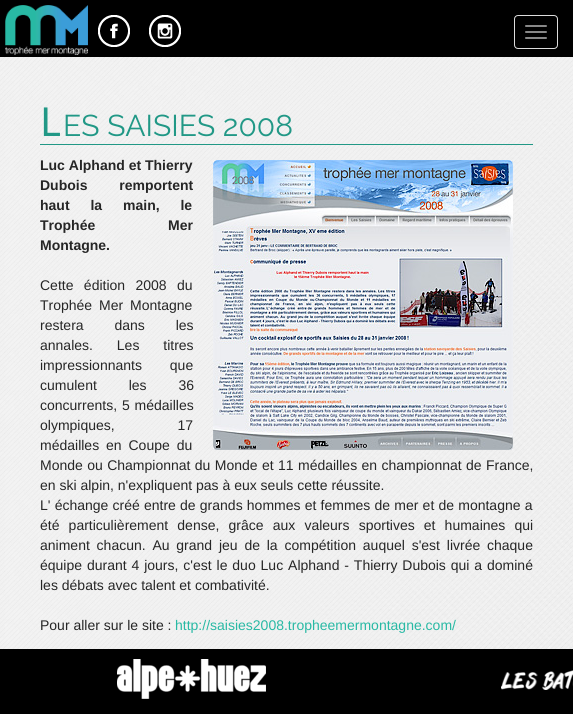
import math
import cairo

surface = cairo.ImageSurface(cairo.FORMAT_RGB24, 573, 714)
cr = cairo.Context(surface)
options = cairo.FontOptions()
options.set_hint_metrics(cairo.HINT_METRICS_OFF)
options.set_hint_style(cairo.HINT_STYLE_NONE)
cr.set_font_options(options)
cr.set_miter_limit(4)


def rgb(code):
    cr.set_source_rgb(*(v / 255 for v in bytes.fromhex(code[-6:])))


def tracked(x, y, s, letter, word):
    cr.move_to(x, y)
    for ch in s:
        cr.show_text(ch)
        cr.rel_move_to(letter + word * (ch == ' '), 0)


def rrect(x, y, w, h, r):
    cr.new_sub_path()
    for i, (u, v) in enumerate([(x + w - r, y + h - r), (x + r, y + h - r), (x + r, y + r), (x + w - r, y + r)]):
        cr.arc(u, v, r, i * math.pi / 2, (i + 1) * math.pi / 2)
    cr.close_path()


def image(path, x, y, w, h):
    cr.save()
    cr.set_source_surface(cairo.ImageSurface.create_from_png(path), x, y)
    cr.rectangle(x, y, w, h)
    cr.fill()
    cr.restore()


rgb("#ffffff")
cr.paint()
image("img/1.png", 0, 57, 573, 592)
rgb("#000000")
cr.rectangle(0, 0, 573, 57)
cr.fill()
image("img/2.png", 5, 5, 83, 50)
image("img/3.png", 98, 15, 32, 32)
image("img/4.png", 149, 15, 32, 32)
rrect(514.5, 15.5, 43, 33, 3.5)
rgb("#dddddd")
cr.set_line_width(1)
cr.stroke()
rgb("#888888")
rrect(525, 25, 22, 2, 1)
cr.fill()
rrect(525, 31, 22, 2, 1)
cr.fill()
rrect(525, 37, 22, 2, 1)
cr.fill()
rgb("#219886")
cr.rectangle(40, 144, 493, 1)
cr.fill()
image("img/5.png", 213, 160, 300, 290)
rgb("#000000")
cr.rectangle(0, 649, 573, 65)
cr.fill()
image("img/6.png", 117, 659, 149, 40)
image("img/7.png", 501, 670, 72, 20)
cr.select_font_face("Noto Sans")
cr.set_font_size(40)
rgb("#219886")
cr.move_to(40, 136)
cr.show_text("L")
cr.select_font_face("Raleway")
cr.set_font_size(30)
cr.move_to(63, 136)
cr.show_text("ES SAISIES 2008")
cr.select_font_face("Liberation Sans", cairo.FONT_SLANT_NORMAL, cairo.FONT_WEIGHT_BOLD)
cr.set_font_size(14)
rgb("#262626")
cr.move_to(40, 170)
cr.show_text("Luc Alphand et Thierry")
tracked(40, 190, "Dubois remportent", 0, 28)
tracked(40, 210, "haut la main, le", 0, 17)
tracked(40, 230, "Trophée Mer", 0, 69)
cr.move_to(40, 250)
cr.show_text("Montagne.")
cr.select_font_face("Liberation Sans")
tracked(40, 290, "Cette édition 2008 du", 0, 6.5)
tracked(40, 310, "Trophée Mer Montagne", 0, 3)
tracked(40, 330, "restera dans les", 0, 27)
tracked(40, 350, "annales. Les titres", 0, 20)
tracked(40, 370, "impressionnants que", 0, 24)
tracked(40, 390, "cumulent les 36", 0, 28)
tracked(40, 410, "concurrents, 5 médailles", 0, 1)
tracked(40, 430, "olympiques, 17", 0, 59)
tracked(40, 450, "médailles en Coupe du", 0, 3)
tracked(40, 470, "Monde ou Championnat du Monde et 11 médailles en championnat de France,", 0, 0.5)
cr.move_to(40, 490)
cr.show_text("en ski alpin, n'expliquent pas à eux seuls cette réussite.")
tracked(40, 510, "L' échange créé entre de grands hommes et femmes de mer et de montagne a", 0, 0.3)
tracked(40, 530, "été particulièrement dense, grâce aux valeurs sportives et humaines qui", 0, 5.25)
tracked(40, 550, "animent chacun. Au grand jeu de la compétition auquel s'est livrée chaque", 0, 2.9)
tracked(40, 570, "équipe durant 4 jours, c'est le duo Luc Alphand - Thierry Dubois qui a dominé", 0, 1)
cr.move_to(40, 590)
cr.show_text("les débats avec talent et combativité.")
cr.move_to(40, 630)
cr.show_text("Pour aller sur le site :")
rgb("#28b9a4")
cr.move_to(175, 630)
cr.show_text("http://saisies2008.tropheemermontagne.com/")
surface.write_to_png("page.png")
